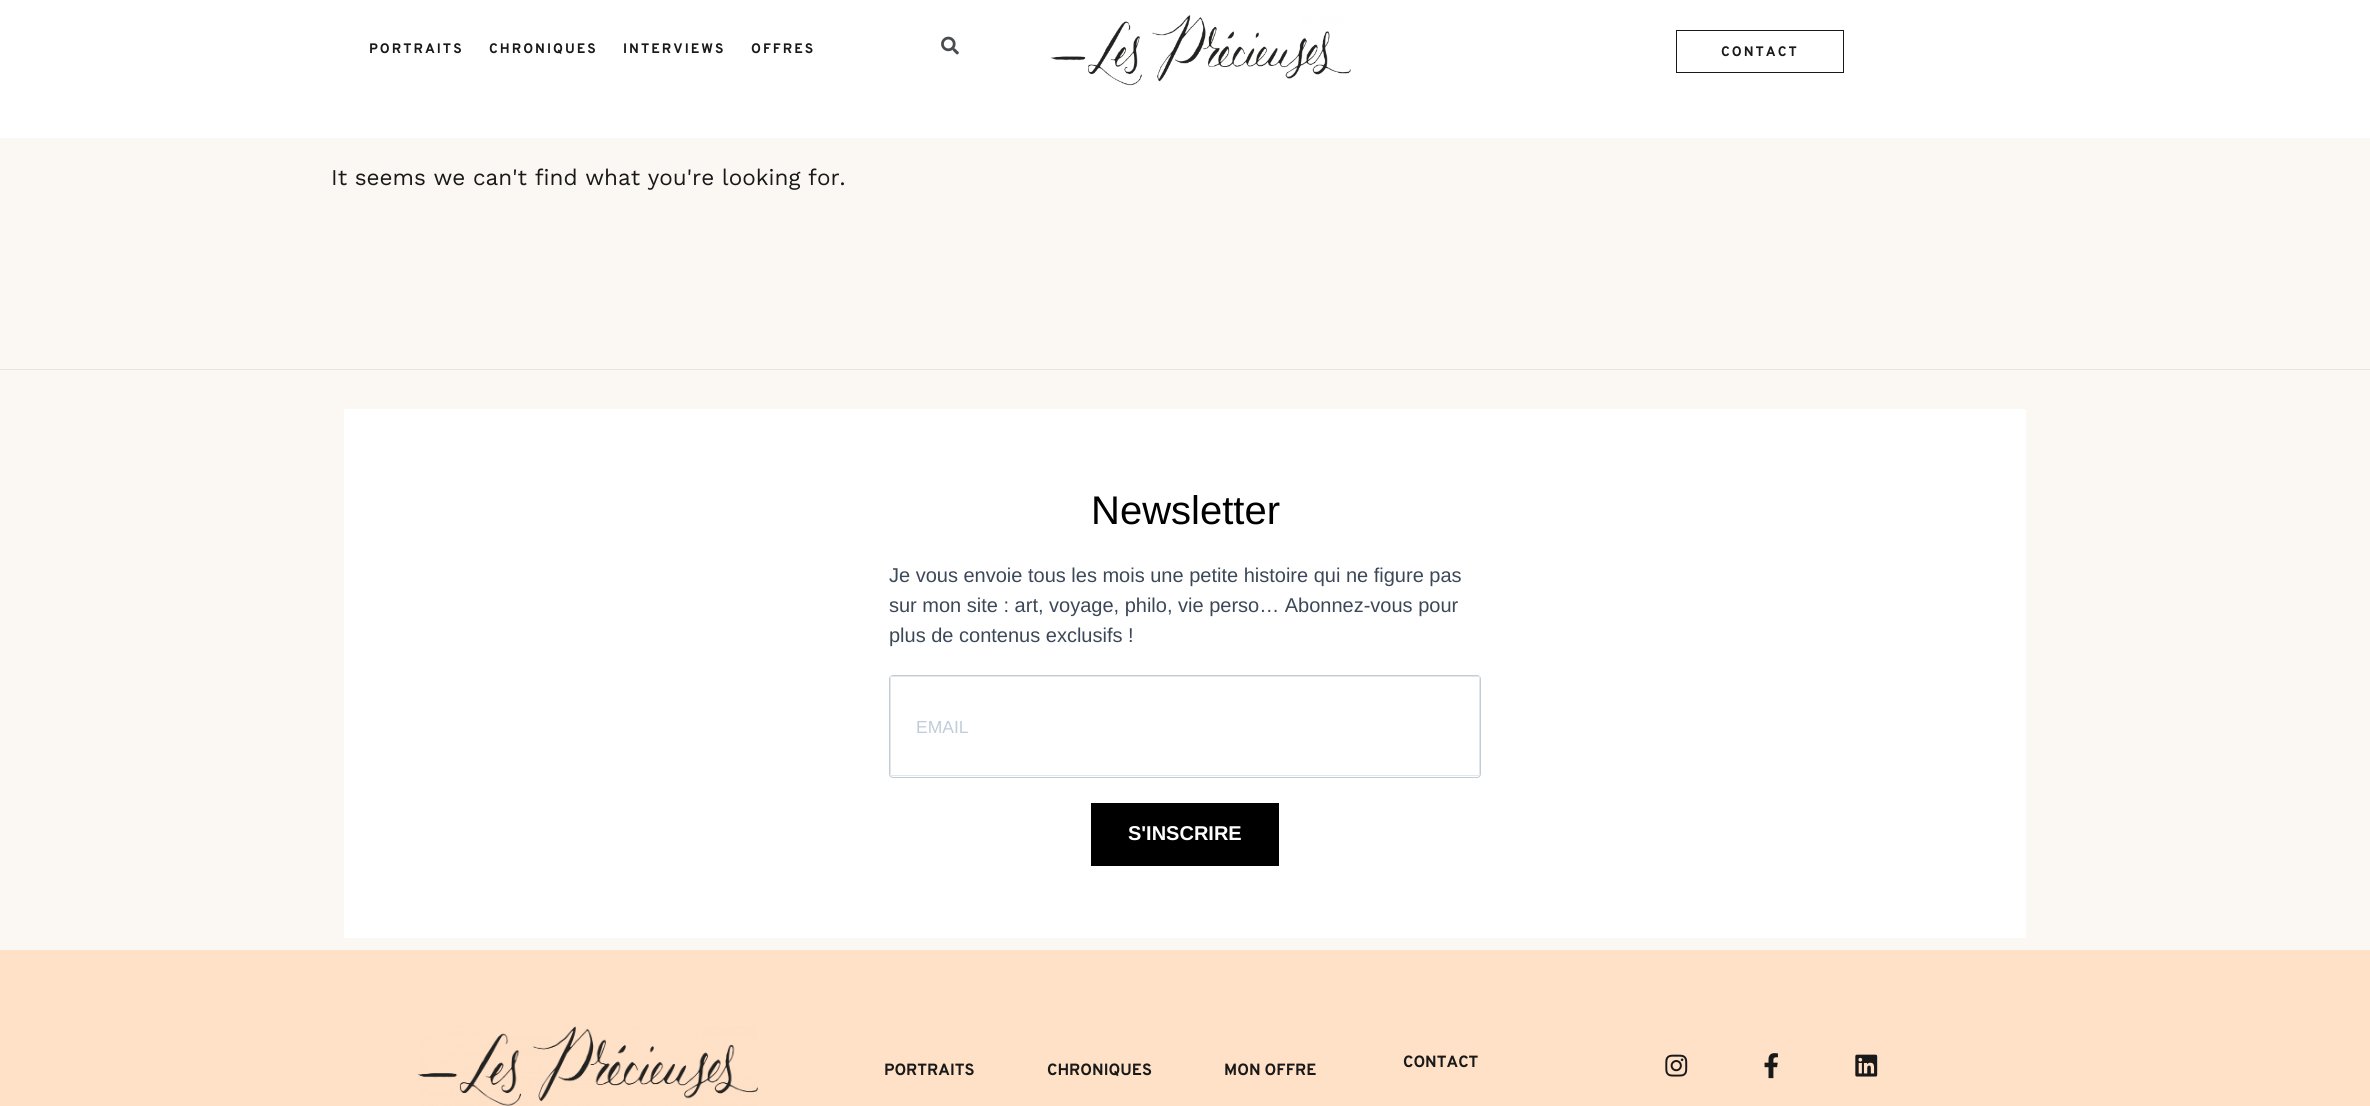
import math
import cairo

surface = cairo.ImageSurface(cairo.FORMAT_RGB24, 2370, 1106)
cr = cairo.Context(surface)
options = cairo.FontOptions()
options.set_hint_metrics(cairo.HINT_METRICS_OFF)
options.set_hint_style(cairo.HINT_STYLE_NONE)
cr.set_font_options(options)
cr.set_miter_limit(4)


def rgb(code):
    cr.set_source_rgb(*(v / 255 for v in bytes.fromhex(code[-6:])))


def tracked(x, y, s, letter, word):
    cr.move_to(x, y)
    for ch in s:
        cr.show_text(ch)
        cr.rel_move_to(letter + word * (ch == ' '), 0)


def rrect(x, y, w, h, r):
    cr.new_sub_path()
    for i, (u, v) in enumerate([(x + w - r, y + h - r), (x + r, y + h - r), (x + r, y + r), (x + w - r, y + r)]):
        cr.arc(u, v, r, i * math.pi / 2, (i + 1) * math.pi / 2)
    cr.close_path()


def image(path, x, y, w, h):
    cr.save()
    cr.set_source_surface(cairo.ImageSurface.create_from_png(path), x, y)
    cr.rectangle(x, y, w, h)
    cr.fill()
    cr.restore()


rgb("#fbf8f3")
cr.paint()
rgb("#ffffff")
cr.rectangle(0, 0, 2370, 138)
cr.fill()
image("img/1.png", 941, 36, 18, 19)
image("img/2.png", 1051, 15, 300, 71)
cr.rectangle(1676.5, 30.5, 167, 42)
rgb("#191919")
cr.set_line_width(1)
cr.stroke()
rgb("#e6e6e6")
cr.rectangle(0, 369, 2370, 1)
cr.fill()
rgb("#ffffff")
cr.rectangle(344, 409, 1682, 529)
cr.fill()
rrect(889.5, 675.5, 591, 102, 3.5)
rgb("#c0ccda")
cr.stroke()
cr.rectangle(890.5, 676.5, 589, 99)
rgb("#e6e6e6")
cr.stroke()
rgb("#000000")
cr.rectangle(1091, 803, 188, 63)
cr.fill()
rgb("#ffe1c8")
cr.rectangle(0, 950, 2370, 156)
cr.fill()
image("img/3.png", 418, 1026, 340, 80)
image("img/4.png", 1665, 1054, 23, 23)
image("img/5.png", 1764, 1053, 14, 26)
image("img/6.png", 1855, 1054, 23, 23)
cr.select_font_face("Overpass", cairo.FONT_SLANT_NORMAL, cairo.FONT_WEIGHT_BOLD)
cr.set_font_size(13.75)
rgb("#191919")
for x, y, s in [
    (369, 53, "PORTRAITS"),
    (489, 53, "CHRONIQUES"),
    (623, 53, "INTERVIEWS"),
    (751, 53, "OFFRES"),
    (1721, 56, "CONTACT"),
]:
    tracked(x, y, s, 2, 0)
cr.select_font_face("Work Sans")
cr.set_font_size(22.5)
cr.move_to(331, 185)
cr.show_text("It seems we can't find what you're looking for.")
cr.select_font_face("Liberation Sans")
cr.set_font_size(40)
rgb("#000000")
cr.move_to(1091, 524)
cr.show_text("Newsletter")
cr.set_font_size(20)
rgb("#3c4858")
for x, y, s in [
    (889, 582, "Je vous envoie tous les mois une petite histoire qui ne figure pas"),
    (889, 612, "sur mon site : art, voyage, philo, vie perso… Abonnez-vous pour"),
    (889, 642, "plus de contenus exclusifs !"),
]:
    cr.move_to(x, y)
    cr.show_text(s)
cr.set_font_size(17.5)
rgb("#c0ccda")
cr.move_to(916, 733)
cr.show_text("EMAIL")
cr.select_font_face("Liberation Sans", cairo.FONT_SLANT_NORMAL, cairo.FONT_WEIGHT_BOLD)
cr.set_font_size(20)
rgb("#ffffff")
cr.move_to(1128, 840)
cr.show_text("S'INSCRIRE")
cr.select_font_face("Overpass", cairo.FONT_SLANT_NORMAL, cairo.FONT_WEIGHT_BOLD)
cr.set_font_size(16.25)
rgb("#191919")
for x, y, s in [
    (1403, 1067, "CONTACT"),
    (884, 1075, "PORTRAITS"),
    (1047, 1075, "CHRONIQUES"),
    (1224, 1075, "MON OFFRE"),
]:
    cr.move_to(x, y)
    cr.show_text(s)
surface.write_to_png("page.png")
